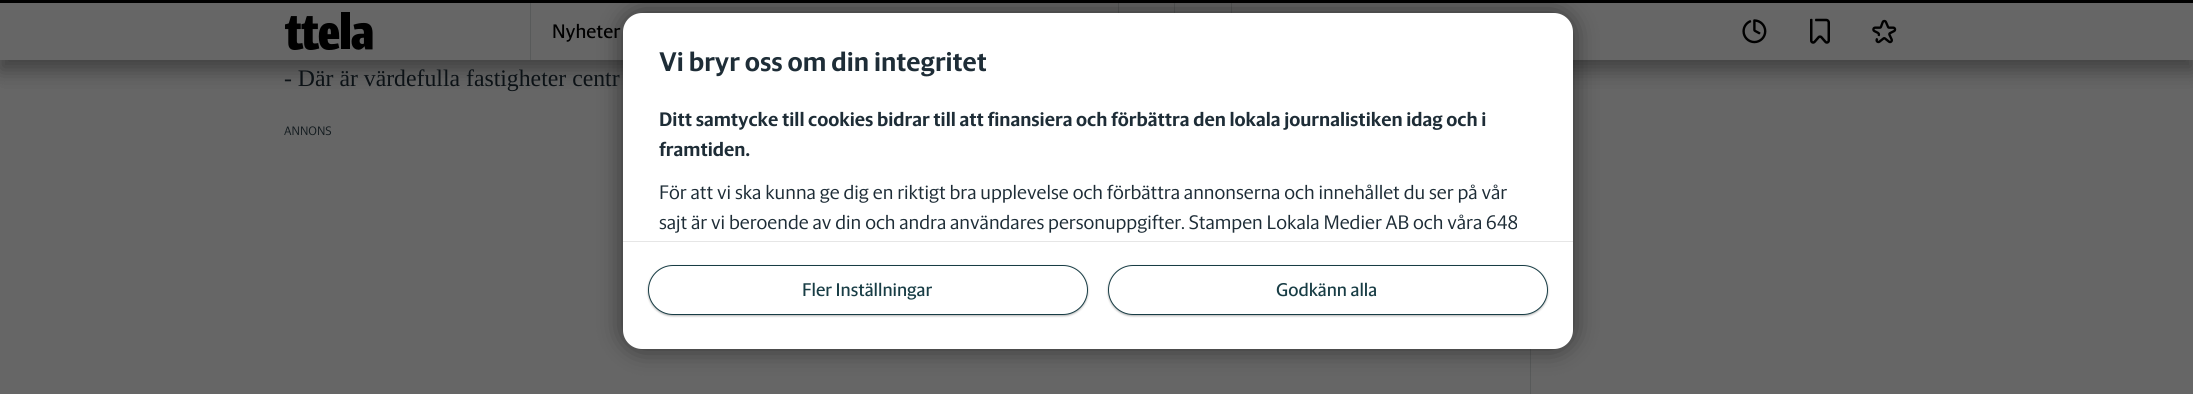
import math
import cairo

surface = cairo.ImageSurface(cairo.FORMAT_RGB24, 2193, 394)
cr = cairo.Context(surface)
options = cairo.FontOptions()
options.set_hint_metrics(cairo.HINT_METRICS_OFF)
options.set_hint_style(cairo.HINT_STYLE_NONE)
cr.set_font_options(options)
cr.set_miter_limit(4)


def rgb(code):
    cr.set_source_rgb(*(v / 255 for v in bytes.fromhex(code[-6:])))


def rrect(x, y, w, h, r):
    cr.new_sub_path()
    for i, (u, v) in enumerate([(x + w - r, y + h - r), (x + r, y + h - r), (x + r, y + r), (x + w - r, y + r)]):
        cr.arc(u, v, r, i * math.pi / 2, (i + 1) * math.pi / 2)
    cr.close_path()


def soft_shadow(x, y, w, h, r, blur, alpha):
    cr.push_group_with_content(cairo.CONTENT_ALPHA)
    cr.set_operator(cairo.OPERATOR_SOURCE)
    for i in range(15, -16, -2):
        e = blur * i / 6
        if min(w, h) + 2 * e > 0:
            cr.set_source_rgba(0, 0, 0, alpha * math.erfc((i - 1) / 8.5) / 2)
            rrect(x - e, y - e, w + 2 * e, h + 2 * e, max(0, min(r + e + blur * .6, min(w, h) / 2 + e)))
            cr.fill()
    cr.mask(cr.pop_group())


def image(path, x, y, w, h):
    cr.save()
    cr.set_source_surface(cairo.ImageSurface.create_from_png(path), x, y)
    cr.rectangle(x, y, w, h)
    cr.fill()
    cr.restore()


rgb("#666666")
cr.paint()
rgb("#000000")
soft_shadow(0, 10, 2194, 60, 0, 10, 0.2)
soft_shadow(0, 10, 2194, 60, 0, 10, 0.2)
rgb("#666666")
cr.rectangle(0, 3, 2193, 57)
cr.fill()
rgb("#000000")
cr.rectangle(0, 0, 2193, 3)
cr.fill()
image("img/1.png", 285, 12, 88, 38)
for x, y, w, h, color in [
    (1174, 3, 1, 10, "#585a5a"),
    (1118, 3, 1, 10, "#585a5a"),
    (1231, 3, 1, 10, "#585a5a"),
    (530, 3, 1, 57, "#585a5a"),
]:
    rgb(color)
    cr.rectangle(x, y, w, h)
    cr.fill()
image("img/2.png", 1742, 19, 25, 25)
image("img/3.png", 1810, 18, 20, 26)
image("img/4.png", 1872, 19, 25, 25)
cr.rectangle(1530, 349, 1, 45)
cr.fill()
rgb("#000000")
soft_shadow(623, 13, 950, 336, 19, 12.5, 0.5)
rgb("#ffffff")
rrect(623, 13, 950, 336, 19)
cr.fill()
rgb("#e6e6e6")
cr.rectangle(623, 241, 950, 1)
cr.fill()
rgb("#000000")
soft_shadow(648, 266, 440, 50, 25, 1, 0.3)
rgb("#ffffff")
rrect(648.5, 265.5, 439, 49, 24.5)
cr.fill_preserve()
rgb("#183d45")
cr.set_line_width(1)
cr.stroke()
rgb("#000000")
soft_shadow(1108, 266, 440, 50, 25, 1, 0.3)
rgb("#ffffff")
rrect(1108.5, 265.5, 439, 49, 24.5)
cr.fill_preserve()
rgb("#183d45")
cr.stroke()
cr.select_font_face("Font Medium")
cr.set_font_size(20)
rgb("#000000")
cr.move_to(552, 38)
cr.show_text("Nyheter")
cr.select_font_face("Liberation Serif")
cr.set_font_size(23.75)
rgb("#0c1216")
cr.move_to(284, 86)
cr.show_text("- Där är värdefulla fastigheter centr")
cr.select_font_face("Font Light")
cr.set_font_size(12.5)
rgb("#141c20")
cr.move_to(284, 135)
cr.show_text("ANNONS")
cr.select_font_face("Font", cairo.FONT_SLANT_NORMAL, cairo.FONT_WEIGHT_BOLD)
cr.set_font_size(27.5)
rgb("#1e2d37")
cr.move_to(659, 71)
cr.show_text("Vi bryr oss om din integritet")
cr.set_font_size(20)
cr.move_to(659, 126)
cr.show_text("Ditt samtycke till cookies bidrar till att finansiera och förbättra den lokala journalistiken idag och i")
cr.move_to(659, 156)
cr.show_text("framtiden.")
cr.select_font_face("Font Light")
cr.move_to(659, 199)
cr.show_text("För att vi ska kunna ge dig en riktigt bra upplevelse och förbättra annonserna och innehållet du ser på vår")
cr.move_to(659, 229)
cr.show_text("sajt är vi beroende av din och andra användares personuppgifter. Stampen Lokala Medier AB och våra 648")
cr.select_font_face("Font Medium")
cr.set_font_size(18.75)
rgb("#183d45")
cr.move_to(802, 296)
cr.show_text("Fler Inställningar")
cr.move_to(1276, 296)
cr.show_text("Godkänn alla")
surface.write_to_png("page.png")
